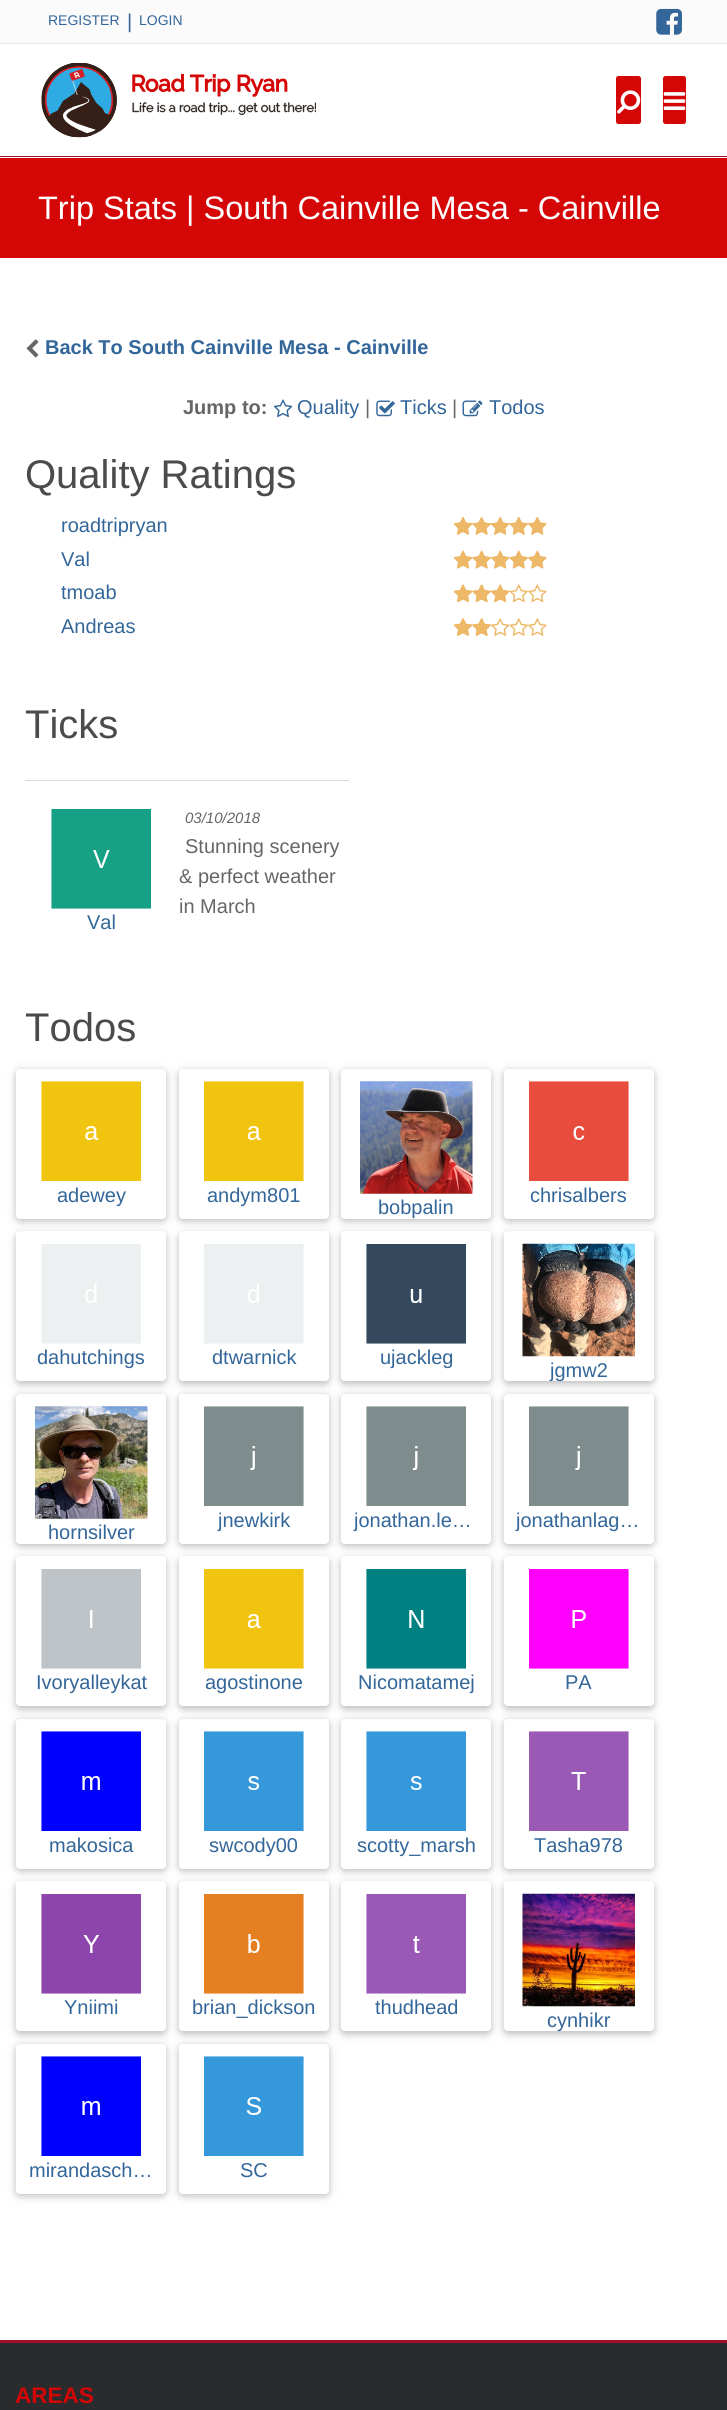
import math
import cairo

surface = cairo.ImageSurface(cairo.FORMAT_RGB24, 727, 2410)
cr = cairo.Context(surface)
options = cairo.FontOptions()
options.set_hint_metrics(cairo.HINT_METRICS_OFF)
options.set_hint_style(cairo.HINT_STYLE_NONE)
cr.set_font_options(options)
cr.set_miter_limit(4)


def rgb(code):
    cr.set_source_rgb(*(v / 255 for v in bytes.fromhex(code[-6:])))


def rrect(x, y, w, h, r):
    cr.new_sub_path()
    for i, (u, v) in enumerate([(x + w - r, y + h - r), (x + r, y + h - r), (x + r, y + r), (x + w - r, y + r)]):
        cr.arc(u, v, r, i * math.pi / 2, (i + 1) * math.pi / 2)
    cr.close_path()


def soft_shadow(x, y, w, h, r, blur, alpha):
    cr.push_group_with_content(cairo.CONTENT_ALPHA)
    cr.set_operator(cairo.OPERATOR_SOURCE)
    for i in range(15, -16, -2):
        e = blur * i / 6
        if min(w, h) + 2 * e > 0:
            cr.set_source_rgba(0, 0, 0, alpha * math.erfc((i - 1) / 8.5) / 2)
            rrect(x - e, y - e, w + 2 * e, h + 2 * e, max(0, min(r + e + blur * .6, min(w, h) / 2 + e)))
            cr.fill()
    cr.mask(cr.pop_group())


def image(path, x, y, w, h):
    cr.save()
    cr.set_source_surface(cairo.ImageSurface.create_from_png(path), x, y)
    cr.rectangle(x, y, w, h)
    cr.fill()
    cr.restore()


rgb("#ffffff")
cr.paint()
rgb("#fbfbfb")
cr.rectangle(0, 0, 727, 43)
cr.fill()
rgb("#e9e9e9")
cr.rectangle(0, 43, 727, 1)
cr.fill()
image("img/1.png", 656, 8, 26, 27)
rgb("#a10f2b")
cr.rectangle(0, 156, 727, 1)
cr.fill()
image("img/2.png", 41, 63, 275, 75)
rgb("#d40606")
rrect(616, 76, 25, 48, 2.5)
cr.fill()
image("img/3.png", 617, 90, 24, 24)
rrect(663, 76, 23, 48, 2.5)
cr.fill()
image("img/4.png", 663, 92, 23, 18)
cr.rectangle(0, 158, 727, 100)
cr.fill()
image("img/5.png", 26, 339, 13, 19)
image("img/6.png", 273, 399, 20, 19)
image("img/7.png", 376, 400, 19, 17)
image("img/8.png", 462, 400, 21, 17)
image("img/9.png", 453, 517, 94, 18)
image("img/10.png", 454, 517, 92, 18)
image("img/11.png", 453, 550, 94, 19)
image("img/12.png", 454, 550, 92, 19)
image("img/13.png", 453, 584, 94, 19)
image("img/14.png", 454, 584, 56, 19)
image("img/15.png", 453, 618, 94, 18)
image("img/16.png", 454, 618, 37, 18)
rgb("#d9d9d9")
cr.rectangle(25, 780, 324, 1)
cr.fill()
image("img/17.png", 51, 809, 100, 100)
cr.save()
cr.set_fill_rule(cairo.FILL_RULE_EVEN_ODD)
cr.new_path()
cr.move_to(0, 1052)
cr.line_to(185, 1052)
cr.line_to(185, 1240)
cr.line_to(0, 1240)
cr.close_path()
cr.move_to(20, 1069)
cr.line_to(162, 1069)
cr.curve_to(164, 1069, 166, 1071, 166, 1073)
cr.line_to(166, 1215)
cr.curve_to(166, 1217, 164, 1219, 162, 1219)
cr.line_to(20, 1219)
cr.curve_to(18, 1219, 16, 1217, 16, 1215)
cr.line_to(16, 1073)
cr.curve_to(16, 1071, 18, 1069, 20, 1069)
cr.close_path()
cr.clip()
rgb("#000000")
soft_shadow(16, 1071, 150, 150, 4, 6, 0.12)
cr.restore()
cr.save()
cr.set_fill_rule(cairo.FILL_RULE_EVEN_ODD)
cr.new_path()
cr.move_to(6, 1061)
cr.line_to(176, 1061)
cr.line_to(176, 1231)
cr.line_to(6, 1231)
cr.close_path()
cr.move_to(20, 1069)
cr.line_to(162, 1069)
cr.curve_to(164, 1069, 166, 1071, 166, 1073)
cr.line_to(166, 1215)
cr.curve_to(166, 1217, 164, 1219, 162, 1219)
cr.line_to(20, 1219)
cr.curve_to(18, 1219, 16, 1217, 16, 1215)
cr.line_to(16, 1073)
cr.curve_to(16, 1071, 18, 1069, 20, 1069)
cr.close_path()
cr.clip()
rgb("#000000")
soft_shadow(16, 1071, 150, 150, 4, 3, 0.16)
cr.restore()
image("img/18.png", 41, 1081, 100, 100)
cr.save()
cr.set_fill_rule(cairo.FILL_RULE_EVEN_ODD)
cr.new_path()
cr.move_to(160, 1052)
cr.line_to(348, 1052)
cr.line_to(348, 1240)
cr.line_to(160, 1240)
cr.close_path()
cr.move_to(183, 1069)
cr.line_to(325, 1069)
cr.curve_to(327, 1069, 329, 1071, 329, 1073)
cr.line_to(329, 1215)
cr.curve_to(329, 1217, 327, 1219, 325, 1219)
cr.line_to(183, 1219)
cr.curve_to(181, 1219, 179, 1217, 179, 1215)
cr.line_to(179, 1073)
cr.curve_to(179, 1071, 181, 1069, 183, 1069)
cr.close_path()
cr.clip()
rgb("#000000")
soft_shadow(179, 1071, 150, 150, 4, 6, 0.12)
cr.restore()
cr.save()
cr.set_fill_rule(cairo.FILL_RULE_EVEN_ODD)
cr.new_path()
cr.move_to(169, 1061)
cr.line_to(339, 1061)
cr.line_to(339, 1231)
cr.line_to(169, 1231)
cr.close_path()
cr.move_to(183, 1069)
cr.line_to(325, 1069)
cr.curve_to(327, 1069, 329, 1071, 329, 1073)
cr.line_to(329, 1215)
cr.curve_to(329, 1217, 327, 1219, 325, 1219)
cr.line_to(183, 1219)
cr.curve_to(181, 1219, 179, 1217, 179, 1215)
cr.line_to(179, 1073)
cr.curve_to(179, 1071, 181, 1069, 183, 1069)
cr.close_path()
cr.clip()
rgb("#000000")
soft_shadow(179, 1071, 150, 150, 4, 3, 0.16)
cr.restore()
image("img/19.png", 204, 1081, 100, 100)
cr.save()
cr.set_fill_rule(cairo.FILL_RULE_EVEN_ODD)
cr.new_path()
cr.move_to(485, 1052)
cr.line_to(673, 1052)
cr.line_to(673, 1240)
cr.line_to(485, 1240)
cr.close_path()
cr.move_to(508, 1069)
cr.line_to(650, 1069)
cr.curve_to(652, 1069, 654, 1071, 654, 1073)
cr.line_to(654, 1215)
cr.curve_to(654, 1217, 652, 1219, 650, 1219)
cr.line_to(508, 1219)
cr.curve_to(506, 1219, 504, 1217, 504, 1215)
cr.line_to(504, 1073)
cr.curve_to(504, 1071, 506, 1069, 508, 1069)
cr.close_path()
cr.clip()
rgb("#000000")
soft_shadow(504, 1071, 150, 150, 4, 6, 0.12)
cr.restore()
cr.save()
cr.set_fill_rule(cairo.FILL_RULE_EVEN_ODD)
cr.new_path()
cr.move_to(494, 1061)
cr.line_to(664, 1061)
cr.line_to(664, 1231)
cr.line_to(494, 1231)
cr.close_path()
cr.move_to(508, 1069)
cr.line_to(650, 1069)
cr.curve_to(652, 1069, 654, 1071, 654, 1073)
cr.line_to(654, 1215)
cr.curve_to(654, 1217, 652, 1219, 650, 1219)
cr.line_to(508, 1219)
cr.curve_to(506, 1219, 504, 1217, 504, 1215)
cr.line_to(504, 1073)
cr.curve_to(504, 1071, 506, 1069, 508, 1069)
cr.close_path()
cr.clip()
rgb("#000000")
soft_shadow(504, 1071, 150, 150, 4, 3, 0.16)
cr.restore()
image("img/20.png", 529, 1081, 100, 100)
cr.save()
cr.set_fill_rule(cairo.FILL_RULE_EVEN_ODD)
cr.new_path()
cr.move_to(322, 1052)
cr.line_to(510, 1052)
cr.line_to(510, 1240)
cr.line_to(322, 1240)
cr.close_path()
cr.move_to(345, 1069)
cr.line_to(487, 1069)
cr.curve_to(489, 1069, 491, 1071, 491, 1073)
cr.line_to(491, 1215)
cr.curve_to(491, 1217, 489, 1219, 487, 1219)
cr.line_to(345, 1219)
cr.curve_to(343, 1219, 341, 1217, 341, 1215)
cr.line_to(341, 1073)
cr.curve_to(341, 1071, 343, 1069, 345, 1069)
cr.close_path()
cr.clip()
rgb("#000000")
soft_shadow(341, 1071, 150, 150, 4, 6, 0.12)
cr.restore()
cr.save()
cr.set_fill_rule(cairo.FILL_RULE_EVEN_ODD)
cr.new_path()
cr.move_to(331, 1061)
cr.line_to(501, 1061)
cr.line_to(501, 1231)
cr.line_to(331, 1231)
cr.close_path()
cr.move_to(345, 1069)
cr.line_to(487, 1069)
cr.curve_to(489, 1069, 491, 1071, 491, 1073)
cr.line_to(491, 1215)
cr.curve_to(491, 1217, 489, 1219, 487, 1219)
cr.line_to(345, 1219)
cr.curve_to(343, 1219, 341, 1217, 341, 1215)
cr.line_to(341, 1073)
cr.curve_to(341, 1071, 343, 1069, 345, 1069)
cr.close_path()
cr.clip()
rgb("#000000")
soft_shadow(341, 1071, 150, 150, 4, 3, 0.16)
cr.restore()
image("img/21.png", 360, 1081, 113, 113)
cr.save()
cr.set_fill_rule(cairo.FILL_RULE_EVEN_ODD)
cr.new_path()
cr.move_to(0, 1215)
cr.line_to(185, 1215)
cr.line_to(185, 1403)
cr.line_to(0, 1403)
cr.close_path()
cr.move_to(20, 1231)
cr.line_to(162, 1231)
cr.curve_to(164, 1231, 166, 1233, 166, 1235)
cr.line_to(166, 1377)
cr.curve_to(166, 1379, 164, 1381, 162, 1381)
cr.line_to(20, 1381)
cr.curve_to(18, 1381, 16, 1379, 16, 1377)
cr.line_to(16, 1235)
cr.curve_to(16, 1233, 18, 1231, 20, 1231)
cr.close_path()
cr.clip()
rgb("#000000")
soft_shadow(16, 1234, 150, 150, 4, 6, 0.12)
cr.restore()
cr.save()
cr.set_fill_rule(cairo.FILL_RULE_EVEN_ODD)
cr.new_path()
cr.move_to(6, 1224)
cr.line_to(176, 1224)
cr.line_to(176, 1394)
cr.line_to(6, 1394)
cr.close_path()
cr.move_to(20, 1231)
cr.line_to(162, 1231)
cr.curve_to(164, 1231, 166, 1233, 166, 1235)
cr.line_to(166, 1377)
cr.curve_to(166, 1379, 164, 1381, 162, 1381)
cr.line_to(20, 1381)
cr.curve_to(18, 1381, 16, 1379, 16, 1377)
cr.line_to(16, 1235)
cr.curve_to(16, 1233, 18, 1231, 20, 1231)
cr.close_path()
cr.clip()
rgb("#000000")
soft_shadow(16, 1234, 150, 150, 4, 3, 0.16)
cr.restore()
image("img/22.png", 41, 1244, 100, 100)
cr.save()
cr.set_fill_rule(cairo.FILL_RULE_EVEN_ODD)
cr.new_path()
cr.move_to(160, 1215)
cr.line_to(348, 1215)
cr.line_to(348, 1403)
cr.line_to(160, 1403)
cr.close_path()
cr.move_to(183, 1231)
cr.line_to(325, 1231)
cr.curve_to(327, 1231, 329, 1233, 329, 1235)
cr.line_to(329, 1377)
cr.curve_to(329, 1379, 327, 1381, 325, 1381)
cr.line_to(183, 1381)
cr.curve_to(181, 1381, 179, 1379, 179, 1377)
cr.line_to(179, 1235)
cr.curve_to(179, 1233, 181, 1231, 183, 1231)
cr.close_path()
cr.clip()
rgb("#000000")
soft_shadow(179, 1234, 150, 150, 4, 6, 0.12)
cr.restore()
cr.save()
cr.set_fill_rule(cairo.FILL_RULE_EVEN_ODD)
cr.new_path()
cr.move_to(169, 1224)
cr.line_to(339, 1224)
cr.line_to(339, 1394)
cr.line_to(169, 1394)
cr.close_path()
cr.move_to(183, 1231)
cr.line_to(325, 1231)
cr.curve_to(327, 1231, 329, 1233, 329, 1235)
cr.line_to(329, 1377)
cr.curve_to(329, 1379, 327, 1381, 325, 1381)
cr.line_to(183, 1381)
cr.curve_to(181, 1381, 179, 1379, 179, 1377)
cr.line_to(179, 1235)
cr.curve_to(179, 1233, 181, 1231, 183, 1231)
cr.close_path()
cr.clip()
rgb("#000000")
soft_shadow(179, 1234, 150, 150, 4, 3, 0.16)
cr.restore()
image("img/23.png", 204, 1244, 100, 100)
cr.save()
cr.set_fill_rule(cairo.FILL_RULE_EVEN_ODD)
cr.new_path()
cr.move_to(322, 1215)
cr.line_to(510, 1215)
cr.line_to(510, 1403)
cr.line_to(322, 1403)
cr.close_path()
cr.move_to(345, 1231)
cr.line_to(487, 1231)
cr.curve_to(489, 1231, 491, 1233, 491, 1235)
cr.line_to(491, 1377)
cr.curve_to(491, 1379, 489, 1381, 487, 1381)
cr.line_to(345, 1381)
cr.curve_to(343, 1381, 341, 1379, 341, 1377)
cr.line_to(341, 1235)
cr.curve_to(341, 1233, 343, 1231, 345, 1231)
cr.close_path()
cr.clip()
rgb("#000000")
soft_shadow(341, 1234, 150, 150, 4, 6, 0.12)
cr.restore()
cr.save()
cr.set_fill_rule(cairo.FILL_RULE_EVEN_ODD)
cr.new_path()
cr.move_to(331, 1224)
cr.line_to(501, 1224)
cr.line_to(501, 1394)
cr.line_to(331, 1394)
cr.close_path()
cr.move_to(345, 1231)
cr.line_to(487, 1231)
cr.curve_to(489, 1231, 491, 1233, 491, 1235)
cr.line_to(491, 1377)
cr.curve_to(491, 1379, 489, 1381, 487, 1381)
cr.line_to(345, 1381)
cr.curve_to(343, 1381, 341, 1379, 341, 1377)
cr.line_to(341, 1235)
cr.curve_to(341, 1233, 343, 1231, 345, 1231)
cr.close_path()
cr.clip()
rgb("#000000")
soft_shadow(341, 1234, 150, 150, 4, 3, 0.16)
cr.restore()
image("img/24.png", 366, 1244, 100, 100)
cr.save()
cr.set_fill_rule(cairo.FILL_RULE_EVEN_ODD)
cr.new_path()
cr.move_to(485, 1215)
cr.line_to(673, 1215)
cr.line_to(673, 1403)
cr.line_to(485, 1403)
cr.close_path()
cr.move_to(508, 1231)
cr.line_to(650, 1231)
cr.curve_to(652, 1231, 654, 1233, 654, 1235)
cr.line_to(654, 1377)
cr.curve_to(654, 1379, 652, 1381, 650, 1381)
cr.line_to(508, 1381)
cr.curve_to(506, 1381, 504, 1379, 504, 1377)
cr.line_to(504, 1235)
cr.curve_to(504, 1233, 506, 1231, 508, 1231)
cr.close_path()
cr.clip()
rgb("#000000")
soft_shadow(504, 1234, 150, 150, 4, 6, 0.12)
cr.restore()
cr.save()
cr.set_fill_rule(cairo.FILL_RULE_EVEN_ODD)
cr.new_path()
cr.move_to(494, 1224)
cr.line_to(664, 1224)
cr.line_to(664, 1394)
cr.line_to(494, 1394)
cr.close_path()
cr.move_to(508, 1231)
cr.line_to(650, 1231)
cr.curve_to(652, 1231, 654, 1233, 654, 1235)
cr.line_to(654, 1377)
cr.curve_to(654, 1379, 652, 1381, 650, 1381)
cr.line_to(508, 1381)
cr.curve_to(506, 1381, 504, 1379, 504, 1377)
cr.line_to(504, 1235)
cr.curve_to(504, 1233, 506, 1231, 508, 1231)
cr.close_path()
cr.clip()
rgb("#000000")
soft_shadow(504, 1234, 150, 150, 4, 3, 0.16)
cr.restore()
image("img/25.png", 522, 1243, 113, 114)
cr.save()
cr.set_fill_rule(cairo.FILL_RULE_EVEN_ODD)
cr.new_path()
cr.move_to(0, 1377)
cr.line_to(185, 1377)
cr.line_to(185, 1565)
cr.line_to(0, 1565)
cr.close_path()
cr.move_to(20, 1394)
cr.line_to(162, 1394)
cr.curve_to(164, 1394, 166, 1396, 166, 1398)
cr.line_to(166, 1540)
cr.curve_to(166, 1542, 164, 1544, 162, 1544)
cr.line_to(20, 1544)
cr.curve_to(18, 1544, 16, 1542, 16, 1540)
cr.line_to(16, 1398)
cr.curve_to(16, 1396, 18, 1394, 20, 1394)
cr.close_path()
cr.clip()
rgb("#000000")
soft_shadow(16, 1396, 150, 150, 4, 6, 0.12)
cr.restore()
cr.save()
cr.set_fill_rule(cairo.FILL_RULE_EVEN_ODD)
cr.new_path()
cr.move_to(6, 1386)
cr.line_to(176, 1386)
cr.line_to(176, 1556)
cr.line_to(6, 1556)
cr.close_path()
cr.move_to(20, 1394)
cr.line_to(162, 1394)
cr.curve_to(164, 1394, 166, 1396, 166, 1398)
cr.line_to(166, 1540)
cr.curve_to(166, 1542, 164, 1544, 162, 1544)
cr.line_to(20, 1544)
cr.curve_to(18, 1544, 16, 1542, 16, 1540)
cr.line_to(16, 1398)
cr.curve_to(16, 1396, 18, 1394, 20, 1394)
cr.close_path()
cr.clip()
rgb("#000000")
soft_shadow(16, 1396, 150, 150, 4, 3, 0.16)
cr.restore()
image("img/26.png", 35, 1406, 113, 113)
cr.save()
cr.set_fill_rule(cairo.FILL_RULE_EVEN_ODD)
cr.new_path()
cr.move_to(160, 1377)
cr.line_to(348, 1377)
cr.line_to(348, 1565)
cr.line_to(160, 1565)
cr.close_path()
cr.move_to(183, 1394)
cr.line_to(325, 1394)
cr.curve_to(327, 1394, 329, 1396, 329, 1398)
cr.line_to(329, 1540)
cr.curve_to(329, 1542, 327, 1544, 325, 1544)
cr.line_to(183, 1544)
cr.curve_to(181, 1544, 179, 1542, 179, 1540)
cr.line_to(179, 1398)
cr.curve_to(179, 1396, 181, 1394, 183, 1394)
cr.close_path()
cr.clip()
rgb("#000000")
soft_shadow(179, 1396, 150, 150, 4, 6, 0.12)
cr.restore()
cr.save()
cr.set_fill_rule(cairo.FILL_RULE_EVEN_ODD)
cr.new_path()
cr.move_to(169, 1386)
cr.line_to(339, 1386)
cr.line_to(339, 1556)
cr.line_to(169, 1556)
cr.close_path()
cr.move_to(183, 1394)
cr.line_to(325, 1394)
cr.curve_to(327, 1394, 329, 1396, 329, 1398)
cr.line_to(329, 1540)
cr.curve_to(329, 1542, 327, 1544, 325, 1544)
cr.line_to(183, 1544)
cr.curve_to(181, 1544, 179, 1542, 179, 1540)
cr.line_to(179, 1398)
cr.curve_to(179, 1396, 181, 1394, 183, 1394)
cr.close_path()
cr.clip()
rgb("#000000")
soft_shadow(179, 1396, 150, 150, 4, 3, 0.16)
cr.restore()
image("img/27.png", 204, 1406, 100, 100)
cr.save()
cr.set_fill_rule(cairo.FILL_RULE_EVEN_ODD)
cr.new_path()
cr.move_to(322, 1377)
cr.line_to(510, 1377)
cr.line_to(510, 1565)
cr.line_to(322, 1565)
cr.close_path()
cr.move_to(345, 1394)
cr.line_to(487, 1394)
cr.curve_to(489, 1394, 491, 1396, 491, 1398)
cr.line_to(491, 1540)
cr.curve_to(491, 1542, 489, 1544, 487, 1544)
cr.line_to(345, 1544)
cr.curve_to(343, 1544, 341, 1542, 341, 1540)
cr.line_to(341, 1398)
cr.curve_to(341, 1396, 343, 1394, 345, 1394)
cr.close_path()
cr.clip()
rgb("#000000")
soft_shadow(341, 1396, 150, 150, 4, 6, 0.12)
cr.restore()
cr.save()
cr.set_fill_rule(cairo.FILL_RULE_EVEN_ODD)
cr.new_path()
cr.move_to(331, 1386)
cr.line_to(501, 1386)
cr.line_to(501, 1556)
cr.line_to(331, 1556)
cr.close_path()
cr.move_to(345, 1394)
cr.line_to(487, 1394)
cr.curve_to(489, 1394, 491, 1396, 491, 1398)
cr.line_to(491, 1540)
cr.curve_to(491, 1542, 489, 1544, 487, 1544)
cr.line_to(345, 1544)
cr.curve_to(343, 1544, 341, 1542, 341, 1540)
cr.line_to(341, 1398)
cr.curve_to(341, 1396, 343, 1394, 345, 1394)
cr.close_path()
cr.clip()
rgb("#000000")
soft_shadow(341, 1396, 150, 150, 4, 3, 0.16)
cr.restore()
image("img/28.png", 366, 1406, 100, 100)
cr.save()
cr.set_fill_rule(cairo.FILL_RULE_EVEN_ODD)
cr.new_path()
cr.move_to(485, 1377)
cr.line_to(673, 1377)
cr.line_to(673, 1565)
cr.line_to(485, 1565)
cr.close_path()
cr.move_to(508, 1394)
cr.line_to(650, 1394)
cr.curve_to(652, 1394, 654, 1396, 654, 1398)
cr.line_to(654, 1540)
cr.curve_to(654, 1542, 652, 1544, 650, 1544)
cr.line_to(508, 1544)
cr.curve_to(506, 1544, 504, 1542, 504, 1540)
cr.line_to(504, 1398)
cr.curve_to(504, 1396, 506, 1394, 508, 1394)
cr.close_path()
cr.clip()
rgb("#000000")
soft_shadow(504, 1396, 150, 150, 4, 6, 0.12)
cr.restore()
cr.save()
cr.set_fill_rule(cairo.FILL_RULE_EVEN_ODD)
cr.new_path()
cr.move_to(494, 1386)
cr.line_to(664, 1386)
cr.line_to(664, 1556)
cr.line_to(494, 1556)
cr.close_path()
cr.move_to(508, 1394)
cr.line_to(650, 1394)
cr.curve_to(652, 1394, 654, 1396, 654, 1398)
cr.line_to(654, 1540)
cr.curve_to(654, 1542, 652, 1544, 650, 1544)
cr.line_to(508, 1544)
cr.curve_to(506, 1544, 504, 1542, 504, 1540)
cr.line_to(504, 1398)
cr.curve_to(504, 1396, 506, 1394, 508, 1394)
cr.close_path()
cr.clip()
rgb("#000000")
soft_shadow(504, 1396, 150, 150, 4, 3, 0.16)
cr.restore()
image("img/27.png", 529, 1406, 100, 100)
cr.save()
cr.set_fill_rule(cairo.FILL_RULE_EVEN_ODD)
cr.new_path()
cr.move_to(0, 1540)
cr.line_to(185, 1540)
cr.line_to(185, 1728)
cr.line_to(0, 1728)
cr.close_path()
cr.move_to(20, 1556)
cr.line_to(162, 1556)
cr.curve_to(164, 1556, 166, 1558, 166, 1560)
cr.line_to(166, 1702)
cr.curve_to(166, 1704, 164, 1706, 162, 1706)
cr.line_to(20, 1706)
cr.curve_to(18, 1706, 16, 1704, 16, 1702)
cr.line_to(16, 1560)
cr.curve_to(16, 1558, 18, 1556, 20, 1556)
cr.close_path()
cr.clip()
rgb("#000000")
soft_shadow(16, 1559, 150, 150, 4, 6, 0.12)
cr.restore()
cr.save()
cr.set_fill_rule(cairo.FILL_RULE_EVEN_ODD)
cr.new_path()
cr.move_to(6, 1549)
cr.line_to(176, 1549)
cr.line_to(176, 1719)
cr.line_to(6, 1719)
cr.close_path()
cr.move_to(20, 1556)
cr.line_to(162, 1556)
cr.curve_to(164, 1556, 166, 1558, 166, 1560)
cr.line_to(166, 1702)
cr.curve_to(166, 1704, 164, 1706, 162, 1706)
cr.line_to(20, 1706)
cr.curve_to(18, 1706, 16, 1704, 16, 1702)
cr.line_to(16, 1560)
cr.curve_to(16, 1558, 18, 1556, 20, 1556)
cr.close_path()
cr.clip()
rgb("#000000")
soft_shadow(16, 1559, 150, 150, 4, 3, 0.16)
cr.restore()
image("img/29.png", 41, 1569, 100, 100)
cr.save()
cr.set_fill_rule(cairo.FILL_RULE_EVEN_ODD)
cr.new_path()
cr.move_to(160, 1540)
cr.line_to(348, 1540)
cr.line_to(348, 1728)
cr.line_to(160, 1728)
cr.close_path()
cr.move_to(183, 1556)
cr.line_to(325, 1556)
cr.curve_to(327, 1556, 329, 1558, 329, 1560)
cr.line_to(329, 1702)
cr.curve_to(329, 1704, 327, 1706, 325, 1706)
cr.line_to(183, 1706)
cr.curve_to(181, 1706, 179, 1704, 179, 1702)
cr.line_to(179, 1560)
cr.curve_to(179, 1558, 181, 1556, 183, 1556)
cr.close_path()
cr.clip()
rgb("#000000")
soft_shadow(179, 1559, 150, 150, 4, 6, 0.12)
cr.restore()
cr.save()
cr.set_fill_rule(cairo.FILL_RULE_EVEN_ODD)
cr.new_path()
cr.move_to(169, 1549)
cr.line_to(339, 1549)
cr.line_to(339, 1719)
cr.line_to(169, 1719)
cr.close_path()
cr.move_to(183, 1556)
cr.line_to(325, 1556)
cr.curve_to(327, 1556, 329, 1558, 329, 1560)
cr.line_to(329, 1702)
cr.curve_to(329, 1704, 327, 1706, 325, 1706)
cr.line_to(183, 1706)
cr.curve_to(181, 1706, 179, 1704, 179, 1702)
cr.line_to(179, 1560)
cr.curve_to(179, 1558, 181, 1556, 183, 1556)
cr.close_path()
cr.clip()
rgb("#000000")
soft_shadow(179, 1559, 150, 150, 4, 3, 0.16)
cr.restore()
image("img/30.png", 204, 1569, 100, 100)
cr.save()
cr.set_fill_rule(cairo.FILL_RULE_EVEN_ODD)
cr.new_path()
cr.move_to(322, 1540)
cr.line_to(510, 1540)
cr.line_to(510, 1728)
cr.line_to(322, 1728)
cr.close_path()
cr.move_to(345, 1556)
cr.line_to(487, 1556)
cr.curve_to(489, 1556, 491, 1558, 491, 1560)
cr.line_to(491, 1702)
cr.curve_to(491, 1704, 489, 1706, 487, 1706)
cr.line_to(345, 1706)
cr.curve_to(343, 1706, 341, 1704, 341, 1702)
cr.line_to(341, 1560)
cr.curve_to(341, 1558, 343, 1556, 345, 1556)
cr.close_path()
cr.clip()
rgb("#000000")
soft_shadow(341, 1559, 150, 150, 4, 6, 0.12)
cr.restore()
cr.save()
cr.set_fill_rule(cairo.FILL_RULE_EVEN_ODD)
cr.new_path()
cr.move_to(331, 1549)
cr.line_to(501, 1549)
cr.line_to(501, 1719)
cr.line_to(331, 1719)
cr.close_path()
cr.move_to(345, 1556)
cr.line_to(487, 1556)
cr.curve_to(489, 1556, 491, 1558, 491, 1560)
cr.line_to(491, 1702)
cr.curve_to(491, 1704, 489, 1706, 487, 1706)
cr.line_to(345, 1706)
cr.curve_to(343, 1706, 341, 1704, 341, 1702)
cr.line_to(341, 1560)
cr.curve_to(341, 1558, 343, 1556, 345, 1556)
cr.close_path()
cr.clip()
rgb("#000000")
soft_shadow(341, 1559, 150, 150, 4, 3, 0.16)
cr.restore()
image("img/31.png", 366, 1569, 100, 100)
cr.save()
cr.set_fill_rule(cairo.FILL_RULE_EVEN_ODD)
cr.new_path()
cr.move_to(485, 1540)
cr.line_to(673, 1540)
cr.line_to(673, 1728)
cr.line_to(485, 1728)
cr.close_path()
cr.move_to(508, 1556)
cr.line_to(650, 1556)
cr.curve_to(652, 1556, 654, 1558, 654, 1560)
cr.line_to(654, 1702)
cr.curve_to(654, 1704, 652, 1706, 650, 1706)
cr.line_to(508, 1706)
cr.curve_to(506, 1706, 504, 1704, 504, 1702)
cr.line_to(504, 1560)
cr.curve_to(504, 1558, 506, 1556, 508, 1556)
cr.close_path()
cr.clip()
rgb("#000000")
soft_shadow(504, 1559, 150, 150, 4, 6, 0.12)
cr.restore()
cr.save()
cr.set_fill_rule(cairo.FILL_RULE_EVEN_ODD)
cr.new_path()
cr.move_to(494, 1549)
cr.line_to(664, 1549)
cr.line_to(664, 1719)
cr.line_to(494, 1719)
cr.close_path()
cr.move_to(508, 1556)
cr.line_to(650, 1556)
cr.curve_to(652, 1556, 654, 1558, 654, 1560)
cr.line_to(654, 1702)
cr.curve_to(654, 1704, 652, 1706, 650, 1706)
cr.line_to(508, 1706)
cr.curve_to(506, 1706, 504, 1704, 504, 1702)
cr.line_to(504, 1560)
cr.curve_to(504, 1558, 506, 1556, 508, 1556)
cr.close_path()
cr.clip()
rgb("#000000")
soft_shadow(504, 1559, 150, 150, 4, 3, 0.16)
cr.restore()
image("img/32.png", 529, 1569, 100, 100)
cr.save()
cr.set_fill_rule(cairo.FILL_RULE_EVEN_ODD)
cr.new_path()
cr.move_to(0, 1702)
cr.line_to(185, 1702)
cr.line_to(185, 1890)
cr.line_to(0, 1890)
cr.close_path()
cr.move_to(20, 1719)
cr.line_to(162, 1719)
cr.curve_to(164, 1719, 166, 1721, 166, 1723)
cr.line_to(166, 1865)
cr.curve_to(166, 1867, 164, 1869, 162, 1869)
cr.line_to(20, 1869)
cr.curve_to(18, 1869, 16, 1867, 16, 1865)
cr.line_to(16, 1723)
cr.curve_to(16, 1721, 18, 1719, 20, 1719)
cr.close_path()
cr.clip()
rgb("#000000")
soft_shadow(16, 1721, 150, 150, 4, 6, 0.12)
cr.restore()
cr.save()
cr.set_fill_rule(cairo.FILL_RULE_EVEN_ODD)
cr.new_path()
cr.move_to(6, 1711)
cr.line_to(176, 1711)
cr.line_to(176, 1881)
cr.line_to(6, 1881)
cr.close_path()
cr.move_to(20, 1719)
cr.line_to(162, 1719)
cr.curve_to(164, 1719, 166, 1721, 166, 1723)
cr.line_to(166, 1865)
cr.curve_to(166, 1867, 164, 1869, 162, 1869)
cr.line_to(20, 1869)
cr.curve_to(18, 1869, 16, 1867, 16, 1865)
cr.line_to(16, 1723)
cr.curve_to(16, 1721, 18, 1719, 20, 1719)
cr.close_path()
cr.clip()
rgb("#000000")
soft_shadow(16, 1721, 150, 150, 4, 3, 0.16)
cr.restore()
image("img/33.png", 41, 1731, 100, 100)
cr.save()
cr.set_fill_rule(cairo.FILL_RULE_EVEN_ODD)
cr.new_path()
cr.move_to(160, 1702)
cr.line_to(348, 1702)
cr.line_to(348, 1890)
cr.line_to(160, 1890)
cr.close_path()
cr.move_to(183, 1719)
cr.line_to(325, 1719)
cr.curve_to(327, 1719, 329, 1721, 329, 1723)
cr.line_to(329, 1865)
cr.curve_to(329, 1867, 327, 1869, 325, 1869)
cr.line_to(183, 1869)
cr.curve_to(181, 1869, 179, 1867, 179, 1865)
cr.line_to(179, 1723)
cr.curve_to(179, 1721, 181, 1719, 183, 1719)
cr.close_path()
cr.clip()
rgb("#000000")
soft_shadow(179, 1721, 150, 150, 4, 6, 0.12)
cr.restore()
cr.save()
cr.set_fill_rule(cairo.FILL_RULE_EVEN_ODD)
cr.new_path()
cr.move_to(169, 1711)
cr.line_to(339, 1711)
cr.line_to(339, 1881)
cr.line_to(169, 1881)
cr.close_path()
cr.move_to(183, 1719)
cr.line_to(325, 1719)
cr.curve_to(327, 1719, 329, 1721, 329, 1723)
cr.line_to(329, 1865)
cr.curve_to(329, 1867, 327, 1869, 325, 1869)
cr.line_to(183, 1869)
cr.curve_to(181, 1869, 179, 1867, 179, 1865)
cr.line_to(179, 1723)
cr.curve_to(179, 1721, 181, 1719, 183, 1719)
cr.close_path()
cr.clip()
rgb("#000000")
soft_shadow(179, 1721, 150, 150, 4, 3, 0.16)
cr.restore()
image("img/34.png", 204, 1731, 100, 100)
cr.save()
cr.set_fill_rule(cairo.FILL_RULE_EVEN_ODD)
cr.new_path()
cr.move_to(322, 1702)
cr.line_to(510, 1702)
cr.line_to(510, 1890)
cr.line_to(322, 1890)
cr.close_path()
cr.move_to(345, 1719)
cr.line_to(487, 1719)
cr.curve_to(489, 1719, 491, 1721, 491, 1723)
cr.line_to(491, 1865)
cr.curve_to(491, 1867, 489, 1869, 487, 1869)
cr.line_to(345, 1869)
cr.curve_to(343, 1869, 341, 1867, 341, 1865)
cr.line_to(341, 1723)
cr.curve_to(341, 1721, 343, 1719, 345, 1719)
cr.close_path()
cr.clip()
rgb("#000000")
soft_shadow(341, 1721, 150, 150, 4, 6, 0.12)
cr.restore()
cr.save()
cr.set_fill_rule(cairo.FILL_RULE_EVEN_ODD)
cr.new_path()
cr.move_to(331, 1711)
cr.line_to(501, 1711)
cr.line_to(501, 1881)
cr.line_to(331, 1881)
cr.close_path()
cr.move_to(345, 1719)
cr.line_to(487, 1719)
cr.curve_to(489, 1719, 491, 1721, 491, 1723)
cr.line_to(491, 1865)
cr.curve_to(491, 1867, 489, 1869, 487, 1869)
cr.line_to(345, 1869)
cr.curve_to(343, 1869, 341, 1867, 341, 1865)
cr.line_to(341, 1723)
cr.curve_to(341, 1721, 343, 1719, 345, 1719)
cr.close_path()
cr.clip()
rgb("#000000")
soft_shadow(341, 1721, 150, 150, 4, 3, 0.16)
cr.restore()
image("img/35.png", 366, 1731, 100, 100)
cr.save()
cr.set_fill_rule(cairo.FILL_RULE_EVEN_ODD)
cr.new_path()
cr.move_to(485, 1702)
cr.line_to(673, 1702)
cr.line_to(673, 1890)
cr.line_to(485, 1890)
cr.close_path()
cr.move_to(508, 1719)
cr.line_to(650, 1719)
cr.curve_to(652, 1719, 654, 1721, 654, 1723)
cr.line_to(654, 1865)
cr.curve_to(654, 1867, 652, 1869, 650, 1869)
cr.line_to(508, 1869)
cr.curve_to(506, 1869, 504, 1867, 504, 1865)
cr.line_to(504, 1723)
cr.curve_to(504, 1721, 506, 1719, 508, 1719)
cr.close_path()
cr.clip()
rgb("#000000")
soft_shadow(504, 1721, 150, 150, 4, 6, 0.12)
cr.restore()
cr.save()
cr.set_fill_rule(cairo.FILL_RULE_EVEN_ODD)
cr.new_path()
cr.move_to(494, 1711)
cr.line_to(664, 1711)
cr.line_to(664, 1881)
cr.line_to(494, 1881)
cr.close_path()
cr.move_to(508, 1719)
cr.line_to(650, 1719)
cr.curve_to(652, 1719, 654, 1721, 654, 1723)
cr.line_to(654, 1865)
cr.curve_to(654, 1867, 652, 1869, 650, 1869)
cr.line_to(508, 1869)
cr.curve_to(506, 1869, 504, 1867, 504, 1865)
cr.line_to(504, 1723)
cr.curve_to(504, 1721, 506, 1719, 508, 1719)
cr.close_path()
cr.clip()
rgb("#000000")
soft_shadow(504, 1721, 150, 150, 4, 3, 0.16)
cr.restore()
image("img/36.png", 529, 1731, 100, 100)
cr.save()
cr.set_fill_rule(cairo.FILL_RULE_EVEN_ODD)
cr.new_path()
cr.move_to(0, 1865)
cr.line_to(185, 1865)
cr.line_to(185, 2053)
cr.line_to(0, 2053)
cr.close_path()
cr.move_to(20, 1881)
cr.line_to(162, 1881)
cr.curve_to(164, 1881, 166, 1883, 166, 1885)
cr.line_to(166, 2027)
cr.curve_to(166, 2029, 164, 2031, 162, 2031)
cr.line_to(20, 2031)
cr.curve_to(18, 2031, 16, 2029, 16, 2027)
cr.line_to(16, 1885)
cr.curve_to(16, 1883, 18, 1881, 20, 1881)
cr.close_path()
cr.clip()
rgb("#000000")
soft_shadow(16, 1884, 150, 150, 4, 6, 0.12)
cr.restore()
cr.save()
cr.set_fill_rule(cairo.FILL_RULE_EVEN_ODD)
cr.new_path()
cr.move_to(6, 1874)
cr.line_to(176, 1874)
cr.line_to(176, 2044)
cr.line_to(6, 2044)
cr.close_path()
cr.move_to(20, 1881)
cr.line_to(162, 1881)
cr.curve_to(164, 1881, 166, 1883, 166, 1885)
cr.line_to(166, 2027)
cr.curve_to(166, 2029, 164, 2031, 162, 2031)
cr.line_to(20, 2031)
cr.curve_to(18, 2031, 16, 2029, 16, 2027)
cr.line_to(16, 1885)
cr.curve_to(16, 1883, 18, 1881, 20, 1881)
cr.close_path()
cr.clip()
rgb("#000000")
soft_shadow(16, 1884, 150, 150, 4, 3, 0.16)
cr.restore()
image("img/37.png", 41, 1894, 100, 100)
cr.save()
cr.set_fill_rule(cairo.FILL_RULE_EVEN_ODD)
cr.new_path()
cr.move_to(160, 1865)
cr.line_to(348, 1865)
cr.line_to(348, 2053)
cr.line_to(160, 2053)
cr.close_path()
cr.move_to(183, 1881)
cr.line_to(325, 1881)
cr.curve_to(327, 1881, 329, 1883, 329, 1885)
cr.line_to(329, 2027)
cr.curve_to(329, 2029, 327, 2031, 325, 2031)
cr.line_to(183, 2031)
cr.curve_to(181, 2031, 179, 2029, 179, 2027)
cr.line_to(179, 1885)
cr.curve_to(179, 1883, 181, 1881, 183, 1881)
cr.close_path()
cr.clip()
rgb("#000000")
soft_shadow(179, 1884, 150, 150, 4, 6, 0.12)
cr.restore()
cr.save()
cr.set_fill_rule(cairo.FILL_RULE_EVEN_ODD)
cr.new_path()
cr.move_to(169, 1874)
cr.line_to(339, 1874)
cr.line_to(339, 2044)
cr.line_to(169, 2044)
cr.close_path()
cr.move_to(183, 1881)
cr.line_to(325, 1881)
cr.curve_to(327, 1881, 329, 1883, 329, 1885)
cr.line_to(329, 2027)
cr.curve_to(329, 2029, 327, 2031, 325, 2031)
cr.line_to(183, 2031)
cr.curve_to(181, 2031, 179, 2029, 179, 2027)
cr.line_to(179, 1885)
cr.curve_to(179, 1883, 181, 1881, 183, 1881)
cr.close_path()
cr.clip()
rgb("#000000")
soft_shadow(179, 1884, 150, 150, 4, 3, 0.16)
cr.restore()
image("img/38.png", 204, 1894, 100, 100)
cr.save()
cr.set_fill_rule(cairo.FILL_RULE_EVEN_ODD)
cr.new_path()
cr.move_to(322, 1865)
cr.line_to(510, 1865)
cr.line_to(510, 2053)
cr.line_to(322, 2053)
cr.close_path()
cr.move_to(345, 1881)
cr.line_to(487, 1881)
cr.curve_to(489, 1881, 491, 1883, 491, 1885)
cr.line_to(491, 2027)
cr.curve_to(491, 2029, 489, 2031, 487, 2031)
cr.line_to(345, 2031)
cr.curve_to(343, 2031, 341, 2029, 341, 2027)
cr.line_to(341, 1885)
cr.curve_to(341, 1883, 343, 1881, 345, 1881)
cr.close_path()
cr.clip()
rgb("#000000")
soft_shadow(341, 1884, 150, 150, 4, 6, 0.12)
cr.restore()
cr.save()
cr.set_fill_rule(cairo.FILL_RULE_EVEN_ODD)
cr.new_path()
cr.move_to(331, 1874)
cr.line_to(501, 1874)
cr.line_to(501, 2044)
cr.line_to(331, 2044)
cr.close_path()
cr.move_to(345, 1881)
cr.line_to(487, 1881)
cr.curve_to(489, 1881, 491, 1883, 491, 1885)
cr.line_to(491, 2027)
cr.curve_to(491, 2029, 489, 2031, 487, 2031)
cr.line_to(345, 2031)
cr.curve_to(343, 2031, 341, 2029, 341, 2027)
cr.line_to(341, 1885)
cr.curve_to(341, 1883, 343, 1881, 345, 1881)
cr.close_path()
cr.clip()
rgb("#000000")
soft_shadow(341, 1884, 150, 150, 4, 3, 0.16)
cr.restore()
image("img/39.png", 366, 1894, 100, 100)
cr.save()
cr.set_fill_rule(cairo.FILL_RULE_EVEN_ODD)
cr.new_path()
cr.move_to(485, 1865)
cr.line_to(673, 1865)
cr.line_to(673, 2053)
cr.line_to(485, 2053)
cr.close_path()
cr.move_to(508, 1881)
cr.line_to(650, 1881)
cr.curve_to(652, 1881, 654, 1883, 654, 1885)
cr.line_to(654, 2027)
cr.curve_to(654, 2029, 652, 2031, 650, 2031)
cr.line_to(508, 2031)
cr.curve_to(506, 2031, 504, 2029, 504, 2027)
cr.line_to(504, 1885)
cr.curve_to(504, 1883, 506, 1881, 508, 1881)
cr.close_path()
cr.clip()
rgb("#000000")
soft_shadow(504, 1884, 150, 150, 4, 6, 0.12)
cr.restore()
cr.save()
cr.set_fill_rule(cairo.FILL_RULE_EVEN_ODD)
cr.new_path()
cr.move_to(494, 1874)
cr.line_to(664, 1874)
cr.line_to(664, 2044)
cr.line_to(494, 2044)
cr.close_path()
cr.move_to(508, 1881)
cr.line_to(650, 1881)
cr.curve_to(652, 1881, 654, 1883, 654, 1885)
cr.line_to(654, 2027)
cr.curve_to(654, 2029, 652, 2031, 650, 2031)
cr.line_to(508, 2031)
cr.curve_to(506, 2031, 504, 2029, 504, 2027)
cr.line_to(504, 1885)
cr.curve_to(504, 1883, 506, 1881, 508, 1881)
cr.close_path()
cr.clip()
rgb("#000000")
soft_shadow(504, 1884, 150, 150, 4, 3, 0.16)
cr.restore()
image("img/40.png", 522, 1893, 113, 114)
cr.save()
cr.set_fill_rule(cairo.FILL_RULE_EVEN_ODD)
cr.new_path()
cr.move_to(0, 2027)
cr.line_to(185, 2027)
cr.line_to(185, 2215)
cr.line_to(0, 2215)
cr.close_path()
cr.move_to(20, 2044)
cr.line_to(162, 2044)
cr.curve_to(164, 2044, 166, 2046, 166, 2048)
cr.line_to(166, 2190)
cr.curve_to(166, 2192, 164, 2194, 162, 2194)
cr.line_to(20, 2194)
cr.curve_to(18, 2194, 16, 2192, 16, 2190)
cr.line_to(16, 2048)
cr.curve_to(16, 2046, 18, 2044, 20, 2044)
cr.close_path()
cr.clip()
rgb("#000000")
soft_shadow(16, 2046, 150, 150, 4, 6, 0.12)
cr.restore()
cr.save()
cr.set_fill_rule(cairo.FILL_RULE_EVEN_ODD)
cr.new_path()
cr.move_to(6, 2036)
cr.line_to(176, 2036)
cr.line_to(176, 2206)
cr.line_to(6, 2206)
cr.close_path()
cr.move_to(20, 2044)
cr.line_to(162, 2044)
cr.curve_to(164, 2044, 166, 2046, 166, 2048)
cr.line_to(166, 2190)
cr.curve_to(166, 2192, 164, 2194, 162, 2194)
cr.line_to(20, 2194)
cr.curve_to(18, 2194, 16, 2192, 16, 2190)
cr.line_to(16, 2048)
cr.curve_to(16, 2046, 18, 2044, 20, 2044)
cr.close_path()
cr.clip()
rgb("#000000")
soft_shadow(16, 2046, 150, 150, 4, 3, 0.16)
cr.restore()
image("img/33.png", 41, 2056, 100, 100)
cr.save()
cr.set_fill_rule(cairo.FILL_RULE_EVEN_ODD)
cr.new_path()
cr.move_to(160, 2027)
cr.line_to(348, 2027)
cr.line_to(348, 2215)
cr.line_to(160, 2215)
cr.close_path()
cr.move_to(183, 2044)
cr.line_to(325, 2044)
cr.curve_to(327, 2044, 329, 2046, 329, 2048)
cr.line_to(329, 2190)
cr.curve_to(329, 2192, 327, 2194, 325, 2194)
cr.line_to(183, 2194)
cr.curve_to(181, 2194, 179, 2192, 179, 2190)
cr.line_to(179, 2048)
cr.curve_to(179, 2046, 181, 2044, 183, 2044)
cr.close_path()
cr.clip()
rgb("#000000")
soft_shadow(179, 2046, 150, 150, 4, 6, 0.12)
cr.restore()
cr.save()
cr.set_fill_rule(cairo.FILL_RULE_EVEN_ODD)
cr.new_path()
cr.move_to(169, 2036)
cr.line_to(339, 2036)
cr.line_to(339, 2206)
cr.line_to(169, 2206)
cr.close_path()
cr.move_to(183, 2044)
cr.line_to(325, 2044)
cr.curve_to(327, 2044, 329, 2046, 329, 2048)
cr.line_to(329, 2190)
cr.curve_to(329, 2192, 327, 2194, 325, 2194)
cr.line_to(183, 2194)
cr.curve_to(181, 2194, 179, 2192, 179, 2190)
cr.line_to(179, 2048)
cr.curve_to(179, 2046, 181, 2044, 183, 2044)
cr.close_path()
cr.clip()
rgb("#000000")
soft_shadow(179, 2046, 150, 150, 4, 3, 0.16)
cr.restore()
image("img/41.png", 204, 2056, 100, 100)
rgb("#292b2c")
cr.rectangle(0, 2343, 727, 67)
cr.fill()
rgb("#a10f2b")
cr.rectangle(0, 2340, 727, 3)
cr.fill()
cr.select_font_face("Liberation Sans")
cr.set_font_size(14)
rgb("#336699")
cr.move_to(48, 25)
cr.show_text("REGISTER")
cr.set_font_size(20)
cr.move_to(127, 28)
cr.show_text("|")
cr.set_font_size(14)
cr.move_to(139, 25)
cr.show_text("LOGIN")
cr.set_font_size(32.5)
rgb("#ffffff")
cr.move_to(38, 219)
cr.show_text("Trip Stats | South Cainville Mesa - Cainville")
cr.select_font_face("Liberation Sans", cairo.FONT_SLANT_NORMAL, cairo.FONT_WEIGHT_BOLD)
cr.set_font_size(20)
rgb("#336699")
cr.move_to(45, 354)
cr.show_text("Back To South Cainville Mesa - Cainville")
rgb("#666666")
cr.move_to(183, 414)
cr.show_text("Jump to:")
cr.select_font_face("Liberation Sans")
rgb("#336699")
cr.move_to(297, 414)
cr.show_text("Quality")
rgb("#666666")
cr.move_to(365, 414)
cr.show_text("|")
rgb("#336699")
cr.move_to(400, 414)
cr.show_text("Ticks")
rgb("#666666")
cr.move_to(452, 414)
cr.show_text("|")
rgb("#336699")
cr.move_to(489, 414)
cr.show_text("Todos")
cr.set_font_size(40)
rgb("#4b4b4b")
cr.move_to(25, 488)
cr.show_text("Quality Ratings")
cr.set_font_size(20)
rgb("#336699")
for x, y, s in [
    (61, 532, "roadtripryan"),
    (61, 566, "Val"),
    (61, 599, "tmoab"),
    (61, 633, "Andreas"),
]:
    cr.move_to(x, y)
    cr.show_text(s)
cr.set_font_size(40)
rgb("#4b4b4b")
cr.move_to(25, 738)
cr.show_text("Ticks")
cr.select_font_face("Liberation Sans", cairo.FONT_SLANT_ITALIC)
cr.set_font_size(15)
rgb("#666666")
cr.move_to(185, 823)
cr.show_text("03/10/2018")
cr.select_font_face("Liberation Sans")
cr.set_font_size(20)
for x, y, s in [
    (185, 853, "Stunning scenery"),
    (179, 883, "& perfect weather"),
    (179, 913, "in March"),
]:
    cr.move_to(x, y)
    cr.show_text(s)
rgb("#336699")
cr.move_to(87, 929)
cr.show_text("Val")
cr.set_font_size(40)
rgb("#4b4b4b")
cr.move_to(25, 1041)
cr.show_text("Todos")
cr.set_font_size(20)
rgb("#336699")
for x, y, s in [
    (57, 1202, "adewey"),
    (207, 1202, "andym801"),
    (530, 1202, "chrisalbers"),
    (378, 1214, "bobpalin"),
    (37, 1364, "dahutchings"),
    (212, 1364, "dtwarnick"),
    (380, 1364, "ujackleg"),
]:
    cr.move_to(x, y)
    cr.show_text(s)
cr.save()
rrect(504, 1231, 150, 150, 4)
cr.clip()
cr.move_to(550, 1377)
cr.show_text("jgmw2")
cr.restore()
for x, y, s in [
    (48, 1539, "hornsilver"),
    (218, 1527, "jnewkirk"),
    (354, 1527, "jonathan.le…"),
    (516, 1527, "jonathanlag…"),
    (36, 1689, "Ivoryalleykat"),
    (205, 1689, "agostinone"),
    (358, 1689, "Nicomatamej"),
    (565, 1689, "PA"),
    (49, 1852, "makosica"),
    (209, 1852, "swcody00"),
    (357, 1852, "scotty_marsh"),
    (534, 1852, "Tasha978"),
    (64, 2014, "Yniimi"),
    (192, 2014, "brian_dickson"),
    (375, 2014, "thudhead"),
    (547, 2027, "cynhikr"),
    (29, 2177, "mirandasch…"),
    (240, 2177, "SC"),
]:
    cr.move_to(x, y)
    cr.show_text(s)
cr.select_font_face("Liberation Sans", cairo.FONT_SLANT_NORMAL, cairo.FONT_WEIGHT_BOLD)
cr.set_font_size(22.5)
rgb("#d40606")
cr.move_to(15, 2403)
cr.show_text("AREAS")
surface.write_to_png("page.png")
